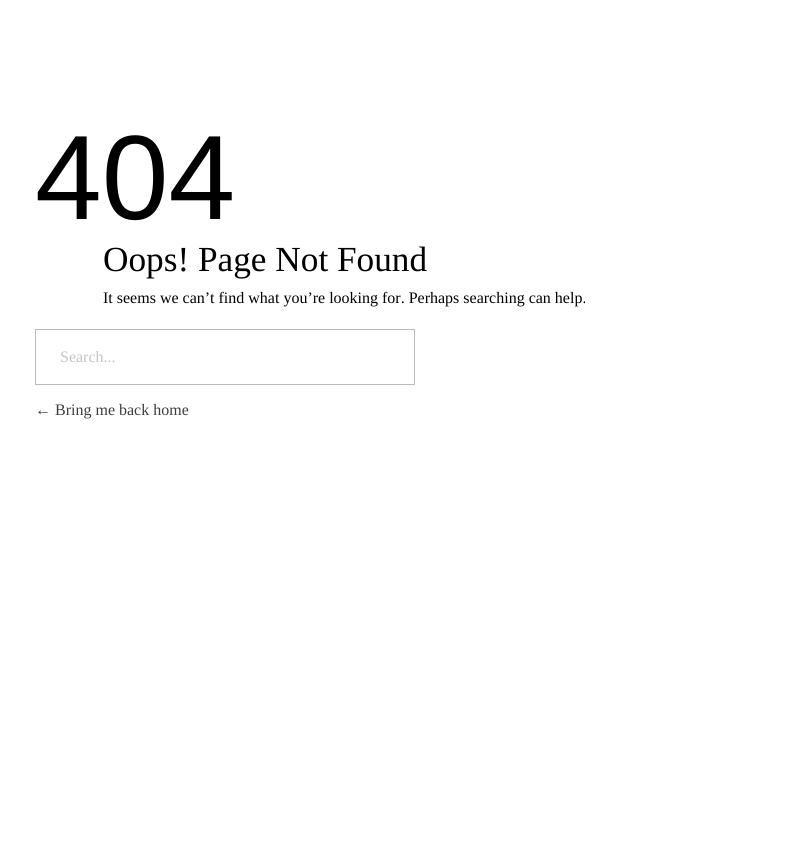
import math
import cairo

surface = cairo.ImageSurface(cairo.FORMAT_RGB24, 787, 864)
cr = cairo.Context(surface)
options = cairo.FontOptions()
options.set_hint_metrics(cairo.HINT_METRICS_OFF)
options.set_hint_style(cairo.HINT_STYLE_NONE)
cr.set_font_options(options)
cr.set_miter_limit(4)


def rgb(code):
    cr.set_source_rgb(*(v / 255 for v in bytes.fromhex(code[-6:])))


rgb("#ffffff")
cr.paint()
cr.rectangle(35.5, 329.5, 379, 55)
rgb("#bbbbbb")
cr.set_line_width(1)
cr.stroke()
cr.select_font_face("Liberation Sans")
cr.set_font_size(120)
rgb("#000000")
cr.move_to(35, 219)
cr.show_text("404")
cr.select_font_face("Liberation Serif")
cr.set_font_size(35.25)
cr.move_to(103, 271)
cr.show_text("Oops! Page Not Found")
cr.set_font_size(16)
cr.move_to(103, 303)
cr.show_text("It seems we can’t find what you’re looking for. Perhaps searching can help.")
rgb("#c5c5c5")
cr.move_to(60, 362)
cr.show_text("Search...")
cr.select_font_face("Liberation Sans")
rgb("#3d3d3d")
cr.move_to(35, 415)
cr.show_text("←")
cr.select_font_face("Liberation Serif")
cr.move_to(55, 415)
cr.show_text("Bring me back home")
surface.write_to_png("page.png")
